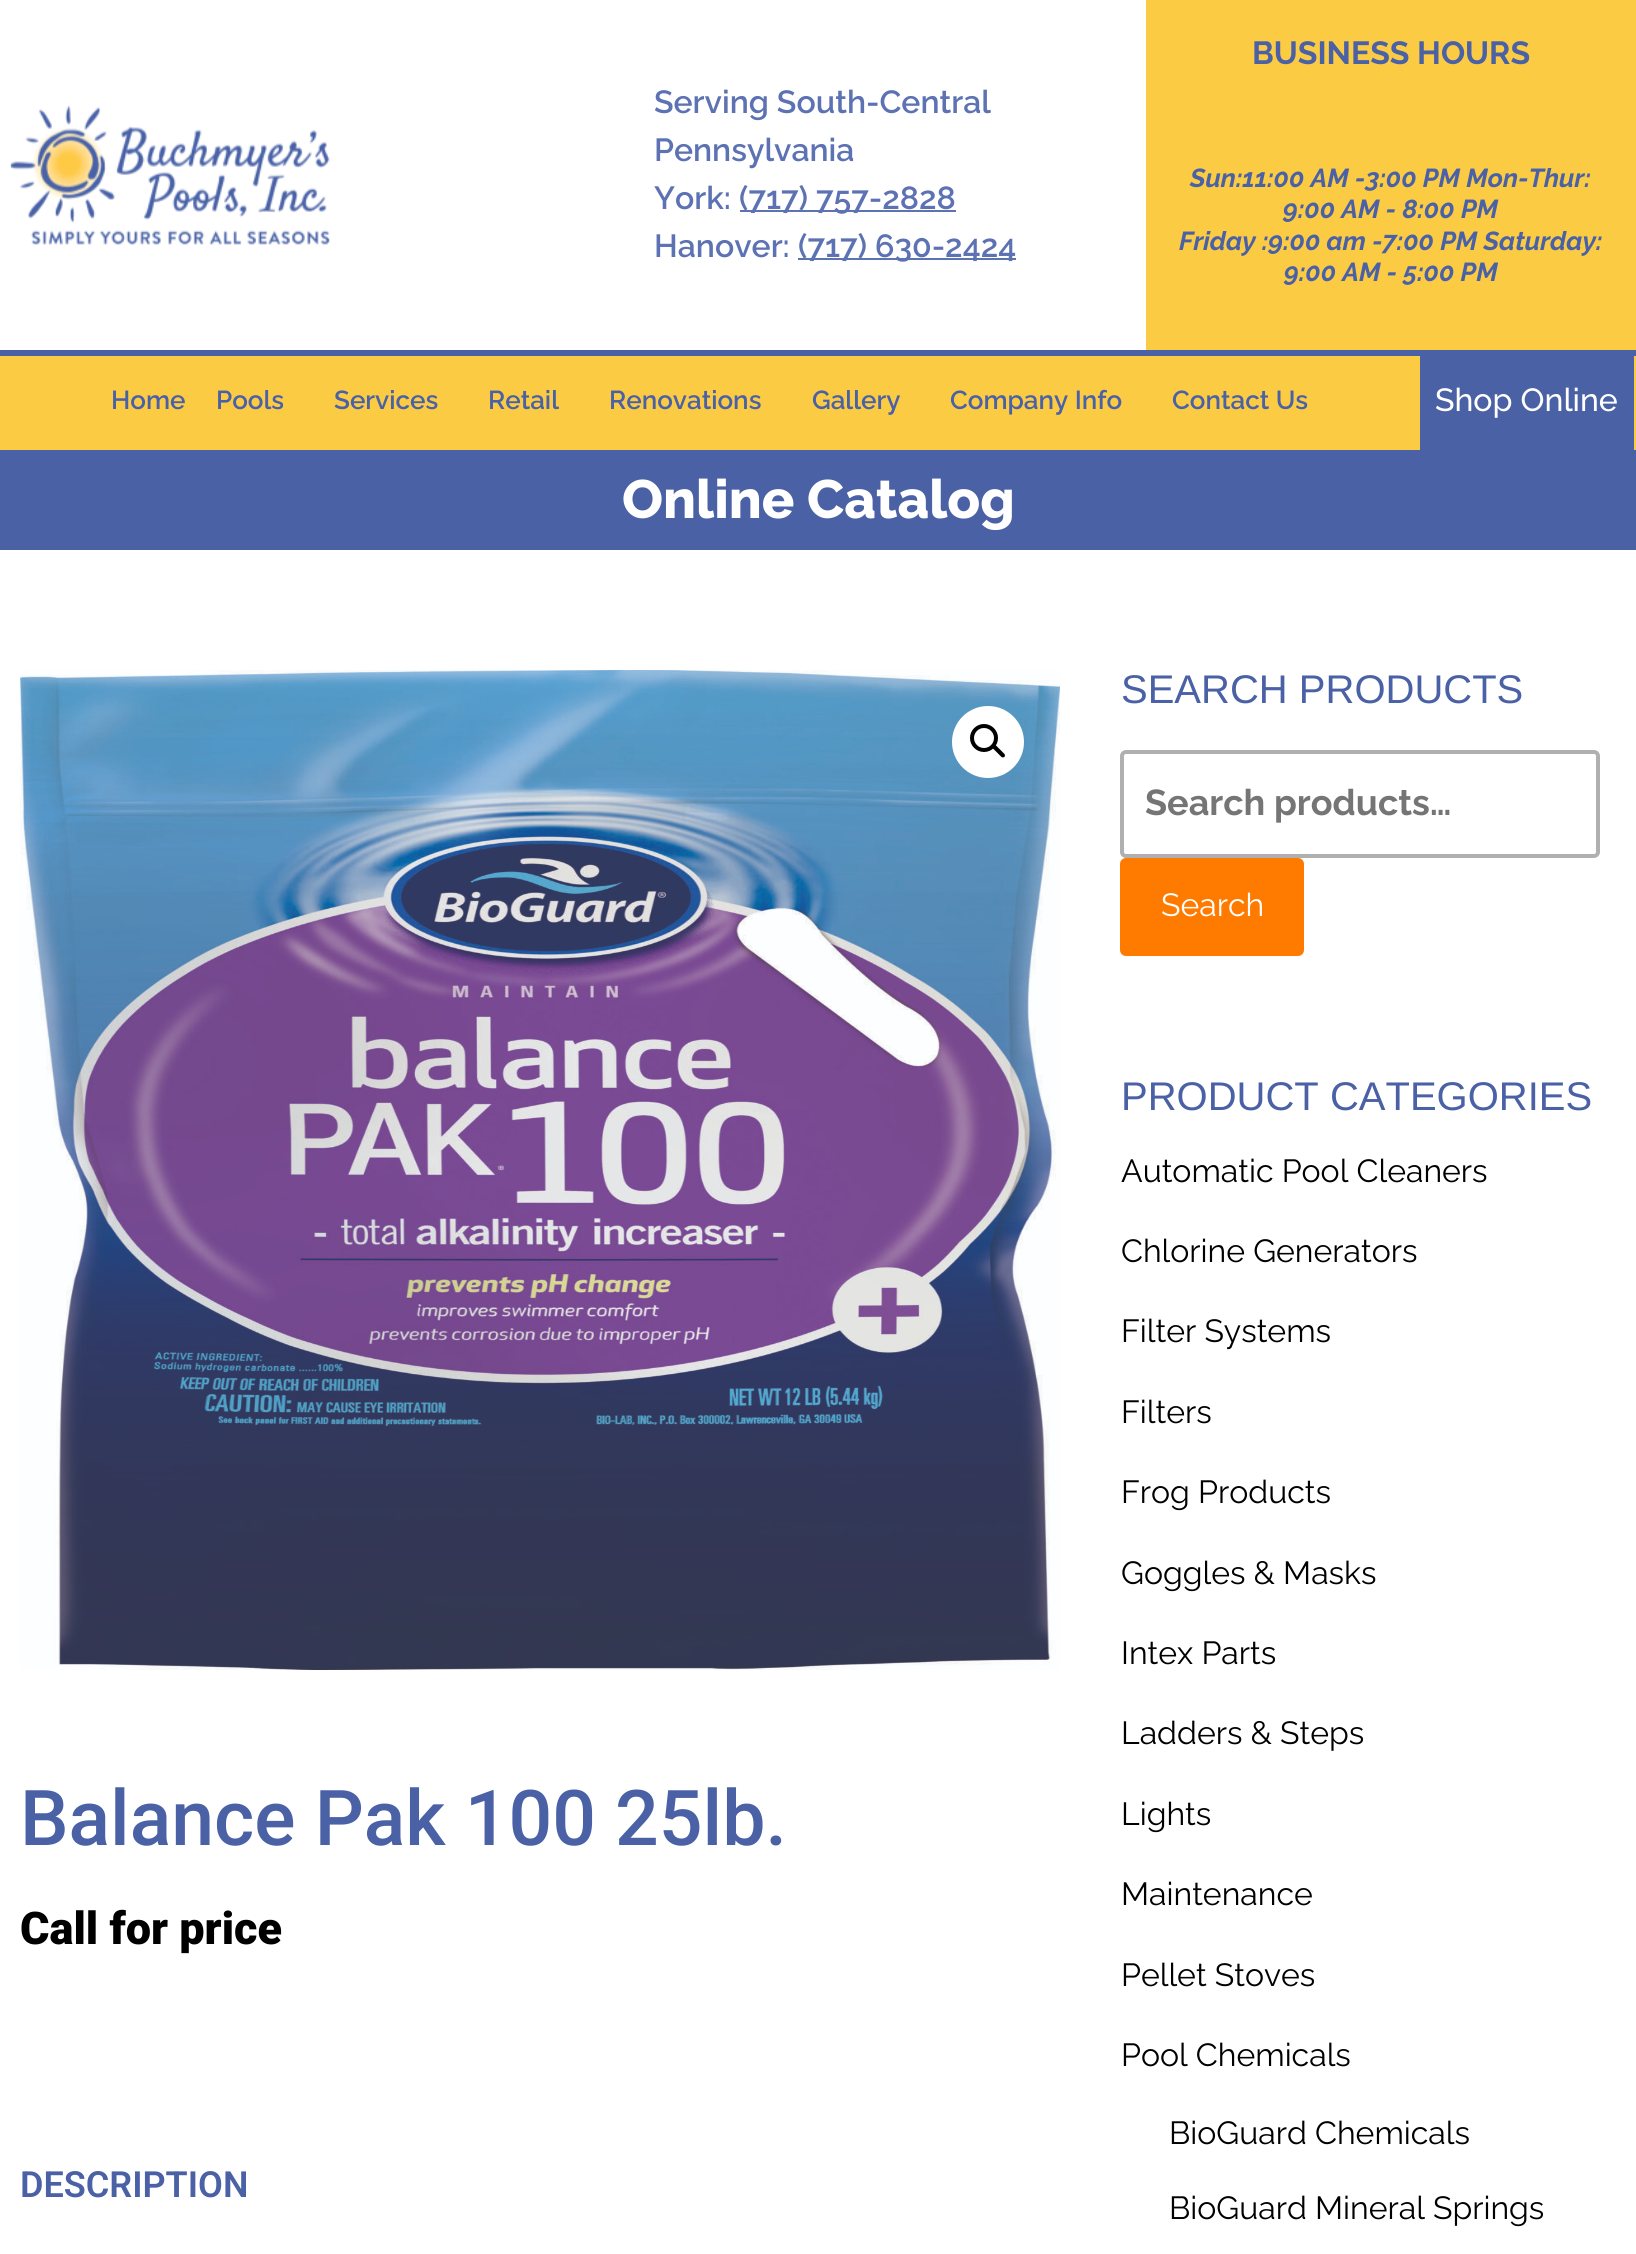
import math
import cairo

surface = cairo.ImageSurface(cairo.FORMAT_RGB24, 1636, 2254)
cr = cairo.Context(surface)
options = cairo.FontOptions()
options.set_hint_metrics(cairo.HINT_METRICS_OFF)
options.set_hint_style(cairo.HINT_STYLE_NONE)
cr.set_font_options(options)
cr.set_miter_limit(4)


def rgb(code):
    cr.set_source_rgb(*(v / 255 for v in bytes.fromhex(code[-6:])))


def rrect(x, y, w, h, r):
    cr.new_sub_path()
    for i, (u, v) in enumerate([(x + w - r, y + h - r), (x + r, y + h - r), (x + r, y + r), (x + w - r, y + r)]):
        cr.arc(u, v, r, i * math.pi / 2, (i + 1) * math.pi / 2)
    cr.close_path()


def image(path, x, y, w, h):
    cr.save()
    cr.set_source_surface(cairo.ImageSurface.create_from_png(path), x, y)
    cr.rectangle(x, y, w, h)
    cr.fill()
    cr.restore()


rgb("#ffffff")
cr.paint()
rgb("#fccb44")
cr.rectangle(1146, 0, 490, 350)
cr.fill()
image("img/1.png", 10, 105, 320, 140)
for x, y, w, h, color in [
    (740, 210, 216, 2, "#5d72b3"),
    (798, 258, 218, 2, "#5d72b3"),
    (0, 356, 1636, 94, "#fccb44"),
    (0, 350, 1636, 6, "#4a61a6"),
    (1420, 356, 214, 94, "#4a61a6"),
    (0, 450, 1636, 100, "#4a61a6"),
]:
    rgb(color)
    cr.rectangle(x, y, w, h)
    cr.fill()
image("img/2.png", 20, 670, 1040, 1000)
rgb("#ffffff")
cr.arc(988, 742, 36, 0, 2 * math.pi)
cr.fill()
cr.arc(984, 738, 12, 0, 2 * math.pi)
rgb("#000000")
cr.set_line_width(4)
cr.stroke()
cr.new_path()
cr.move_to(993, 745.5)
cr.curve_to(993.5, 744.5, 995, 744.5, 996, 745.5)
cr.line_to(1004.5, 754)
cr.curve_to(1005, 754.5, 1005, 756, 1004.5, 757)
cr.curve_to(1003.5, 757.5, 1002, 757.5, 1001.5, 757)
cr.line_to(993, 748.5)
cr.curve_to(992, 747.5, 992, 746, 993, 745.5)
cr.close_path()
cr.fill()
rrect(1122, 752, 476, 104, 4)
rgb("#b0b0b0")
cr.stroke()
rgb("#ff7b00")
rrect(1120, 858, 184, 98, 6)
cr.fill()
cr.select_font_face("Raleway SemiBold")
cr.set_font_size(32)
rgb("#5d72b3")
for x, y, s in [
    (654, 113, "Serving South-Central"),
    (654, 161, "Pennsylvania"),
    (654, 209, "York:"),
    (739, 209, "(717) 757-2828"),
    (654, 257, "Hanover:"),
    (798, 257, "(717) 630-2424"),
]:
    cr.move_to(x, y)
    cr.show_text(s)
cr.select_font_face("Raleway", cairo.FONT_SLANT_NORMAL, cairo.FONT_WEIGHT_BOLD)
rgb("#4a61a6")
cr.move_to(1252, 64)
cr.show_text("BUSINESS HOURS")
cr.select_font_face("Raleway", cairo.FONT_SLANT_ITALIC, cairo.FONT_WEIGHT_BOLD)
cr.set_font_size(26)
for x, y, s in [
    (1190, 187, "Sun:11:00 AM -3:00 PM Mon-Thur:"),
    (1283, 218, "9:00 AM - 8:00 PM"),
    (1179, 250, "Friday :9:00 am -7:00 PM Saturday:"),
    (1284, 281, "9:00 AM - 5:00 PM"),
]:
    cr.move_to(x, y)
    cr.show_text(s)
cr.select_font_face("Raleway SemiBold")
for x, y, s in [
    (111, 409, "Home"),
    (216, 409, "Pools"),
    (334, 409, "Services"),
    (488, 409, "Retail"),
    (609, 409, "Renovations"),
    (812, 409, "Gallery"),
    (950, 409, "Company Info"),
    (1172, 409, "Contact Us"),
]:
    cr.move_to(x, y)
    cr.show_text(s)
cr.select_font_face("Raleway Medium")
cr.set_font_size(32)
rgb("#ffffff")
cr.move_to(1435, 411)
cr.show_text("Shop Online")
cr.select_font_face("Raleway ExtraBold")
cr.set_font_size(54)
cr.move_to(622, 518)
cr.show_text("Online Catalog")
cr.select_font_face("Roboto Medium")
cr.set_font_size(77)
rgb("#4a61a6")
cr.move_to(20, 1845)
cr.show_text("Balance Pak 100 25lb.")
cr.select_font_face("Roboto Black")
cr.set_font_size(45)
rgb("#000000")
cr.move_to(20, 1944)
cr.show_text("Call for price")
cr.select_font_face("Roboto SemiBold")
cr.set_font_size(36)
rgb("#4a61a6")
cr.move_to(20, 2197)
cr.show_text("DESCRIPTION")
cr.select_font_face("Liberation Sans")
cr.set_font_size(40)
cr.move_to(1121, 703)
cr.show_text("SEARCH PRODUCTS")
cr.select_font_face("Raleway", cairo.FONT_SLANT_NORMAL, cairo.FONT_WEIGHT_BOLD)
cr.set_font_size(36)
rgb("#757575")
cr.move_to(1145, 815)
cr.show_text("Search products…")
cr.select_font_face("Raleway")
cr.set_font_size(32)
rgb("#ffffff")
cr.move_to(1161, 916)
cr.show_text("Search")
cr.select_font_face("Liberation Sans")
cr.set_font_size(40)
rgb("#4a61a6")
cr.move_to(1121, 1110)
cr.show_text("PRODUCT CATEGORIES")
cr.select_font_face("Raleway")
cr.set_font_size(32)
rgb("#000000")
for x, y, s in [
    (1121, 1182, "Automatic Pool Cleaners"),
    (1121, 1262, "Chlorine Generators"),
    (1121, 1342, "Filter Systems"),
    (1121, 1423, "Filters"),
    (1121, 1503, "Frog Products"),
    (1121, 1584, "Goggles & Masks"),
    (1121, 1664, "Intex Parts"),
    (1121, 1744, "Ladders & Steps"),
    (1121, 1825, "Lights"),
    (1121, 1905, "Maintenance"),
    (1121, 1986, "Pellet Stoves"),
    (1121, 2066, "Pool Chemicals"),
    (1169, 2144, "BioGuard Chemicals"),
    (1169, 2219, "BioGuard Mineral Springs"),
]:
    cr.move_to(x, y)
    cr.show_text(s)
surface.write_to_png("page.png")
